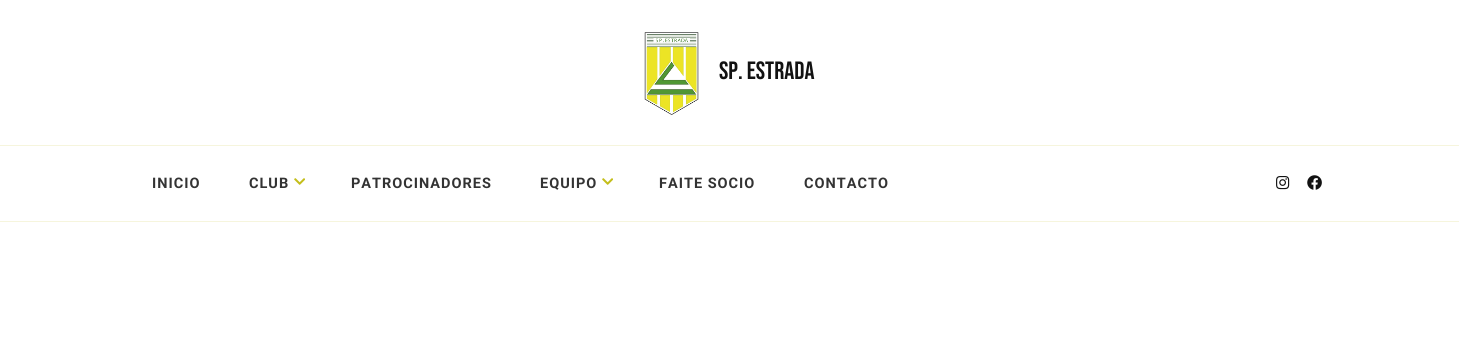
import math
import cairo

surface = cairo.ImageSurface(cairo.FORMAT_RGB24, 1459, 350)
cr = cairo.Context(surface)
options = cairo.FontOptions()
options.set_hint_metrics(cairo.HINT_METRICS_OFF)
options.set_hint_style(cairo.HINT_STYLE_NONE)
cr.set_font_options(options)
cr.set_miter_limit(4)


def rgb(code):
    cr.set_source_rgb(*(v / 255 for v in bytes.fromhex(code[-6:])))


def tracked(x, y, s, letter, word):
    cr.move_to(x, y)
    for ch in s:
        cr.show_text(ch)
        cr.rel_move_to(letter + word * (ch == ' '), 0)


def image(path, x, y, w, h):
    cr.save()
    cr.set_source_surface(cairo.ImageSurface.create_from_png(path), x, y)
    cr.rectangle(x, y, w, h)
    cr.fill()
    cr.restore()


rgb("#ffffff")
cr.paint()
image("img/1.png", 644, 32, 55, 83)
rgb("#f6f5dd")
cr.rectangle(0, 145, 1459, 1)
cr.fill()
cr.rectangle(0, 221, 1459, 1)
cr.fill()
image("img/2.png", 294, 178, 11, 7)
image("img/2.png", 602, 178, 11, 7)
image("img/3.png", 1276, 176, 14, 14)
image("img/4.png", 1307, 175, 15, 15)
cr.select_font_face("Bebas Neue")
cr.set_font_size(25)
rgb("#121212")
cr.move_to(719, 79)
cr.show_text("SP. ESTRADA")
cr.select_font_face("Roboto", cairo.FONT_SLANT_NORMAL, cairo.FONT_WEIGHT_BOLD)
cr.set_font_size(14.5)
rgb("#333333")
for x, y, s in [
    (152, 188, "INICIO"),
    (249, 188, "CLUB"),
    (351, 188, "PATROCINADORES"),
    (540, 188, "EQUIPO"),
    (659, 188, "FAITE SOCIO"),
    (804, 188, "CONTACTO"),
]:
    tracked(x, y, s, 1, 0)
surface.write_to_png("page.png")
